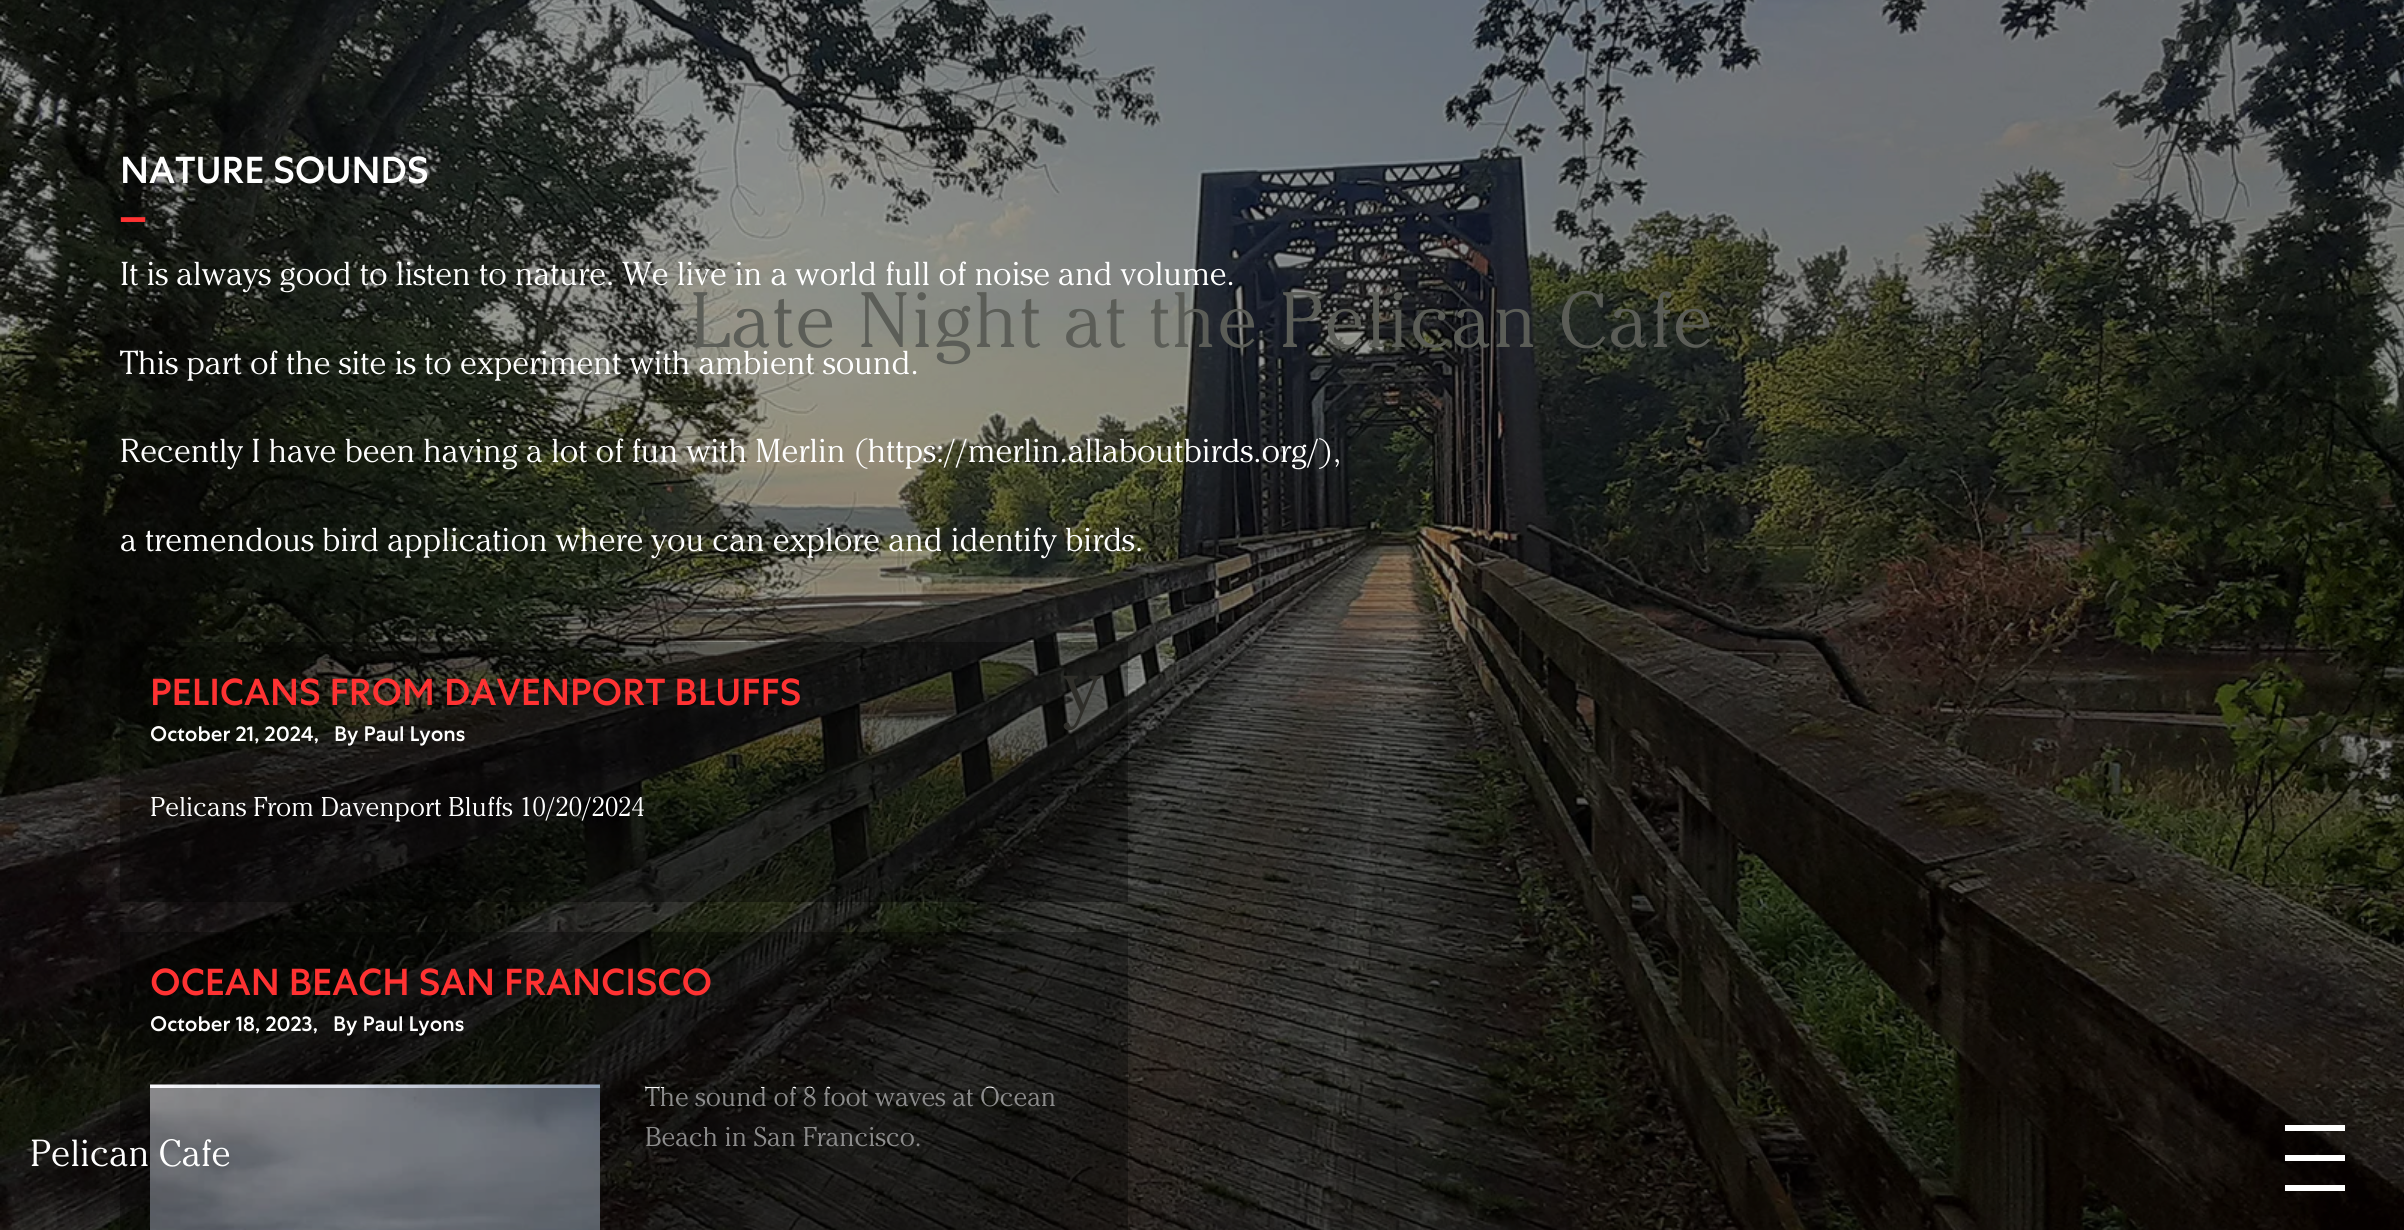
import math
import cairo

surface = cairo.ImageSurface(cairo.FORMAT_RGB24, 2404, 1230)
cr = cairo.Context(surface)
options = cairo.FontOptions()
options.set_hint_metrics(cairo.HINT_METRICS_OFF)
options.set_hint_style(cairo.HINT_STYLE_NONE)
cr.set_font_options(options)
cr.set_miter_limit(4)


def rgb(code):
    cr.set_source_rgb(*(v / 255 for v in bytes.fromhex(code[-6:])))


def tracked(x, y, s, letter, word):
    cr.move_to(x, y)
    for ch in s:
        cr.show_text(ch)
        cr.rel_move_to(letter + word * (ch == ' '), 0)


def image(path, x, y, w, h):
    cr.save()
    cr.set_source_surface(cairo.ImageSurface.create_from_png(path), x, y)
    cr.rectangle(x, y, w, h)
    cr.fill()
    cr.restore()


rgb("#ffffff")
cr.paint()
image("img/1.png", 0, 0, 2404, 1230)
cr.set_source_rgba(0, 0, 0, 0.38)
cr.rectangle(0, 0, 2404, 1088)
cr.fill()
cr.set_source_rgba(0, 0, 0, 0.35)
cr.rectangle(120, 642, 1008, 260)
cr.fill()
cr.rectangle(120, 932, 1008, 298)
cr.fill()
image("img/2.png", 150, 1084, 450, 146)
cr.select_font_face("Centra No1 Medium")
cr.set_font_size(37.5)
rgb("#ffffff")
cr.move_to(120, 183)
cr.show_text("NATURE SOUNDS")
cr.set_font_size(52)
rgb("#ff3232")
cr.move_to(120, 215)
cr.show_text("_")
cr.select_font_face("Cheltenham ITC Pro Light")
cr.set_font_size(33)
rgb("#ffffff")
for x, y, s in [
    (120, 285, "It is always good to listen to nature. We live in a world full of noise and volume."),
    (120, 374, "This part of the site is to experiment with ambient sound."),
    (120, 462, "Recently I have been having a lot of fun with Merlin (https://merlin.allaboutbirds.org/),"),
    (120, 551, "a tremendous bird application where you can explore and identify birds."),
]:
    cr.move_to(x, y)
    cr.show_text(s)
cr.select_font_face("Centra No1 Medium")
cr.set_font_size(37.5)
rgb("#ff3232")
cr.move_to(150, 705)
cr.show_text("PELICANS FROM DAVENPORT BLUFFS")
cr.set_font_size(21)
rgb("#ffffff")
cr.move_to(150, 741)
cr.show_text("October 21, 2024,")
cr.move_to(334, 741)
cr.show_text("By Paul Lyons")
cr.select_font_face("Cheltenham ITC Pro Light")
cr.set_font_size(27)
cr.move_to(150, 816)
cr.show_text("Pelicans From Davenport Bluffs 10/20/2024")
cr.select_font_face("Centra No1 Medium")
cr.set_font_size(37.5)
rgb("#ff3232")
cr.move_to(150, 995)
cr.show_text("OCEAN BEACH SAN FRANCISCO")
cr.set_font_size(21)
rgb("#ffffff")
cr.move_to(150, 1031)
cr.show_text("October 18, 2023,")
cr.move_to(333, 1031)
cr.show_text("By Paul Lyons")
cr.select_font_face("Cheltenham ITC Pro Light")
cr.set_font_size(27)
cr.move_to(645, 1106)
cr.show_text("The sound of 8 foot waves at Ocean")
cr.move_to(645, 1146)
cr.show_text("Beach in San Francisco.")
cr.set_source_rgba(0, 0, 0, 0.45)
cr.rectangle(0, 1088, 2404, 142)
cr.fill()
cr.set_font_size(78)
rgb("#5b5d57")
tracked(690, 347, "Late Night at the Pelican Cafe", 1.5, 0)
rgb("#2f2e29")
tracked(1064, 713, "y", 1.5, 0)
cr.set_font_size(37.5)
rgb("#ffffff")
cr.move_to(30, 1166)
cr.show_text("Pelican Cafe")
for x, y, w, h, color in [
    (2285, 1125, 60, 6, "#ffffff"),
    (2285, 1155, 60, 6, "#ffffff"),
    (2285, 1185, 60, 6, "#ffffff"),
]:
    rgb(color)
    cr.rectangle(x, y, w, h)
    cr.fill()
surface.write_to_png("page.png")
